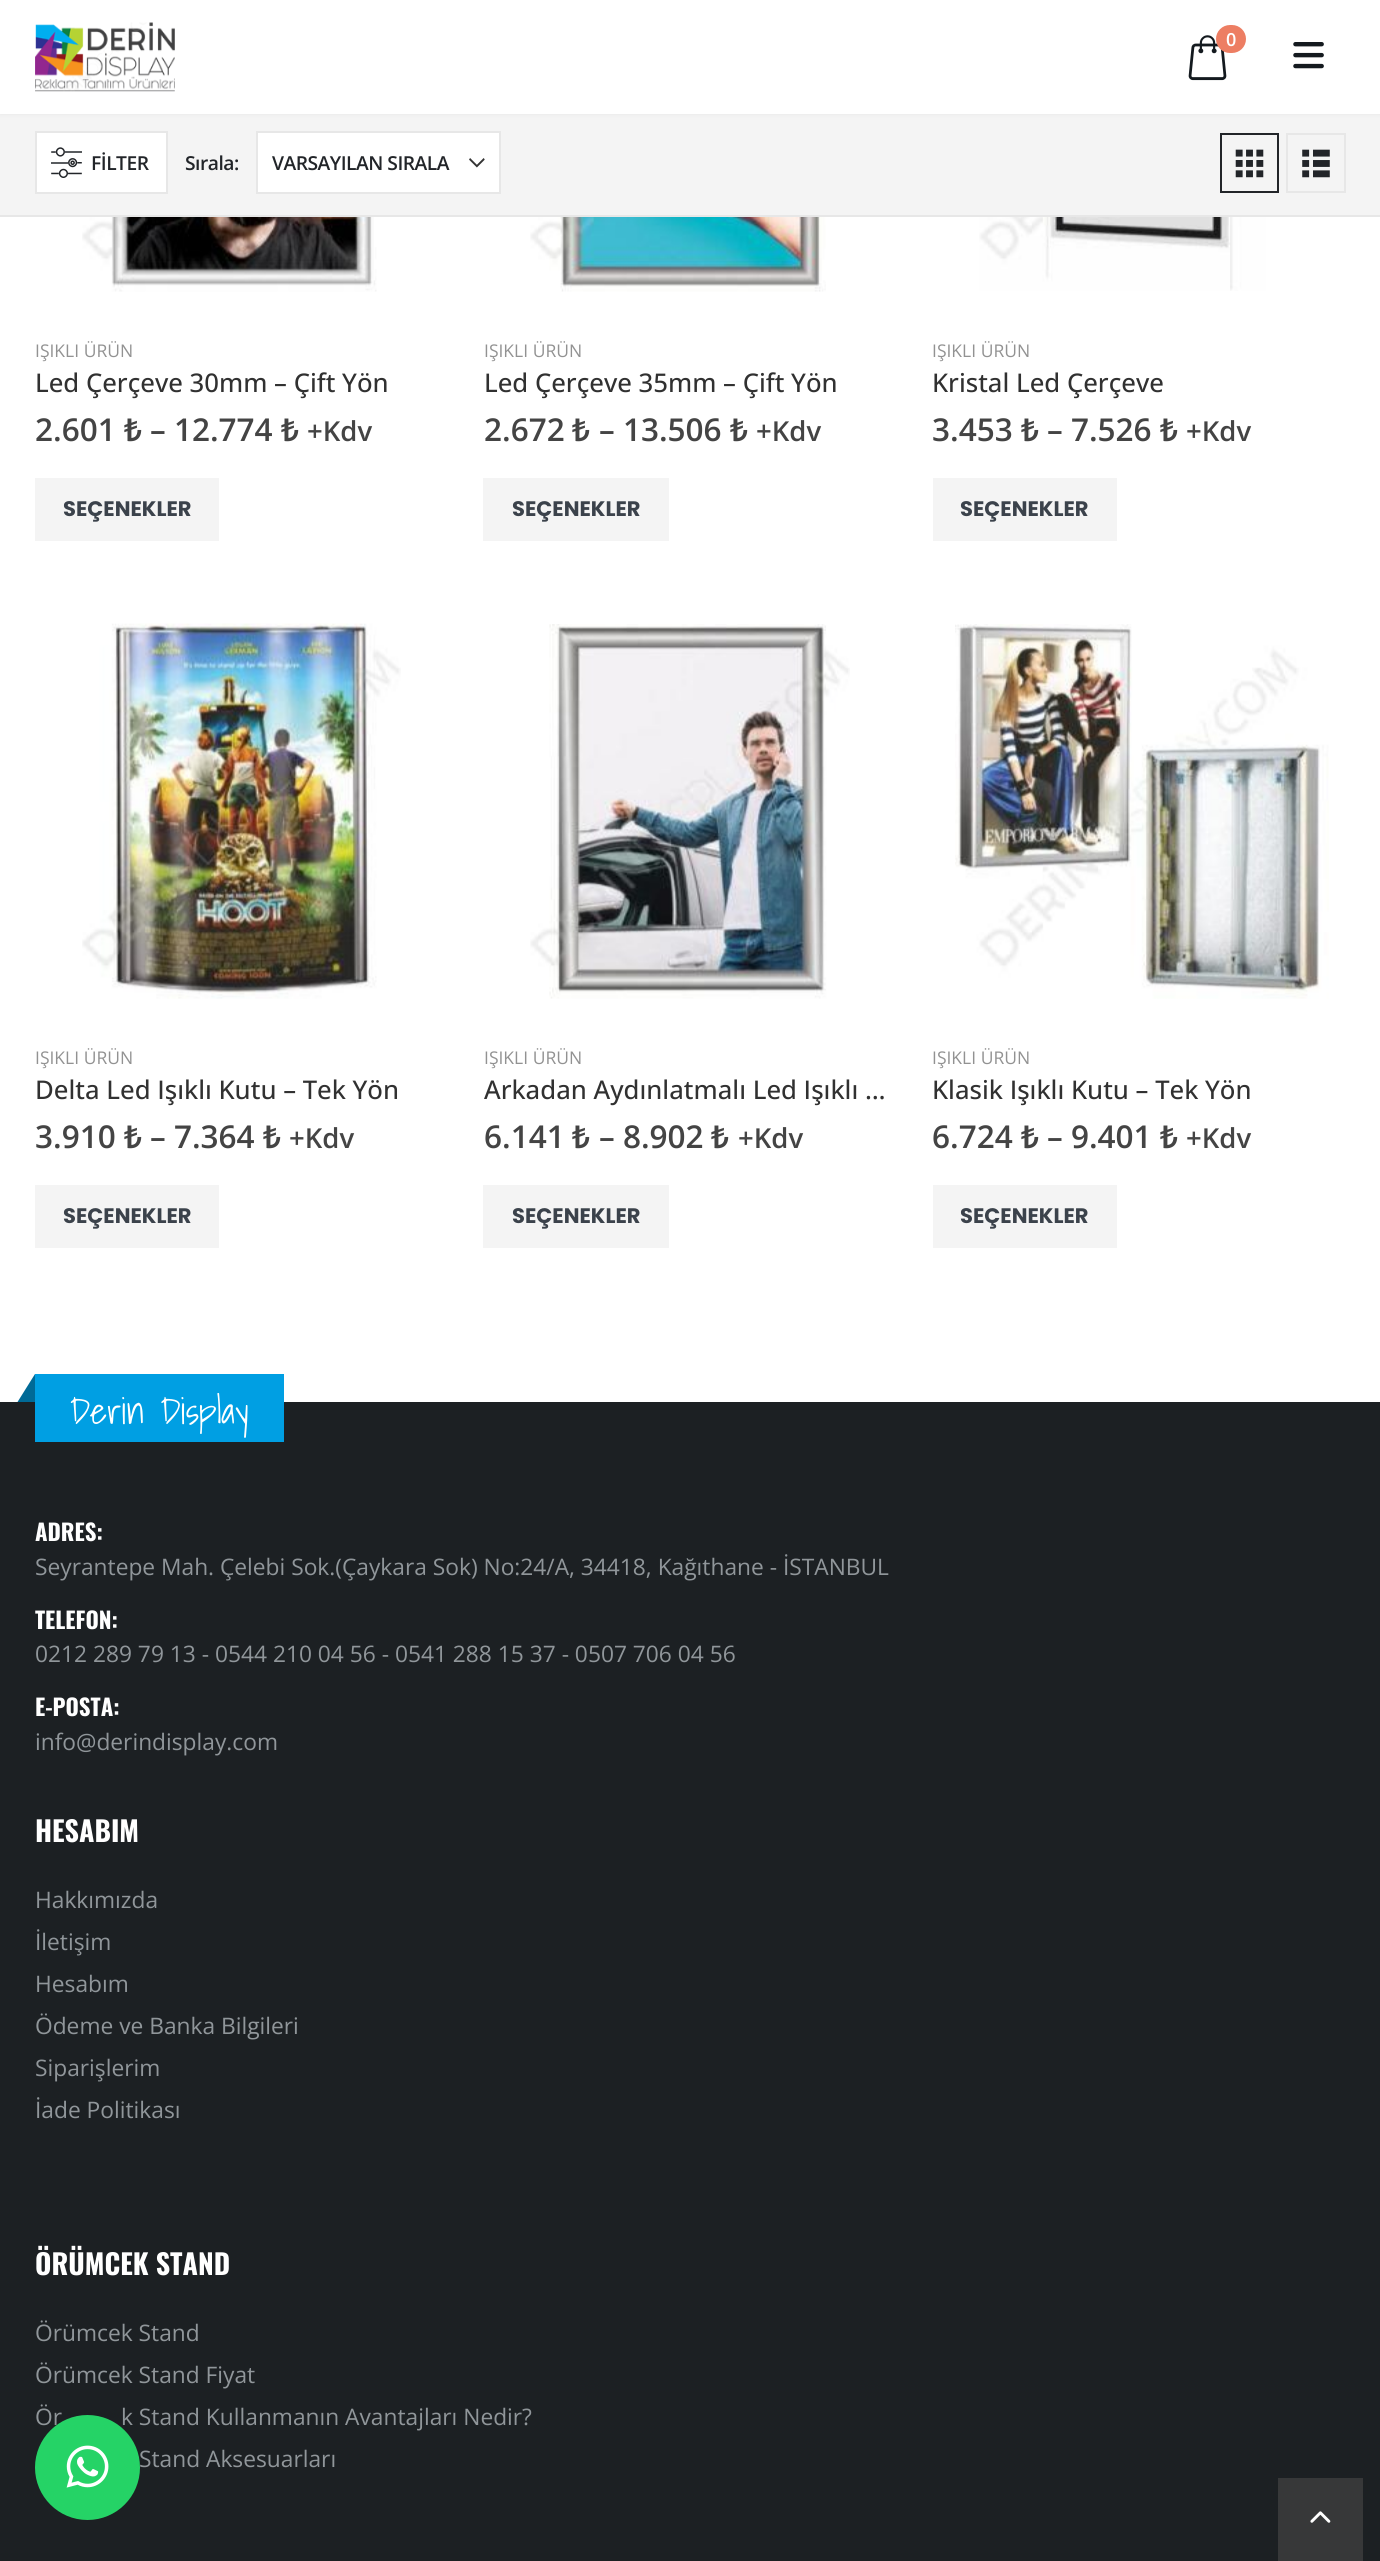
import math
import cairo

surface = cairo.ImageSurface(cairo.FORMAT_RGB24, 1380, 2561)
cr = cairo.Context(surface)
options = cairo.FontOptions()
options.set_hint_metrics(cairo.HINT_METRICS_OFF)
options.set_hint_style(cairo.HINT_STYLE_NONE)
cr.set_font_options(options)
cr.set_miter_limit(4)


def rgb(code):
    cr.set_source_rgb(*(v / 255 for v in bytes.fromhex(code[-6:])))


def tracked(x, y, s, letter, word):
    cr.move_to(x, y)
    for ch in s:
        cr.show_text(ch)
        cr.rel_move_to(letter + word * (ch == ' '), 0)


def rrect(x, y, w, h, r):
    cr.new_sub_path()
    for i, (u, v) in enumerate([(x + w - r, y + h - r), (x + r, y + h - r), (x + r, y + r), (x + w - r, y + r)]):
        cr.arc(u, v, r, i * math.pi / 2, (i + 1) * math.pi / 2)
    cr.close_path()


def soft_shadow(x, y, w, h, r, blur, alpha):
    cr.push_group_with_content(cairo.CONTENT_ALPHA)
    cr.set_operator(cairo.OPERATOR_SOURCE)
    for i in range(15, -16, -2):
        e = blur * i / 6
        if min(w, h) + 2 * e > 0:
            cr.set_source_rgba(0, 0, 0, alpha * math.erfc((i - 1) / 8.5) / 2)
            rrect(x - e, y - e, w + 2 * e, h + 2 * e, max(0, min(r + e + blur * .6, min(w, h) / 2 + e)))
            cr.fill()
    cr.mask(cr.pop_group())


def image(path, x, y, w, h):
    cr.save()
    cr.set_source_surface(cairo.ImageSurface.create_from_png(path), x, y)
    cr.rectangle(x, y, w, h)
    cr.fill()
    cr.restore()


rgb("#ffffff")
cr.paint()
rgb("#f4f4f4")
cr.rectangle(0, 114, 1380, 101)
cr.fill()
rgb("#000000")
soft_shadow(0, 0, 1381, 114, 0, 2.5, 0.06)
rgb("#ffffff")
cr.rectangle(0, 0, 1380, 114)
cr.fill()
image("img/1.png", 35, 22, 140, 70)
image("img/2.png", 1188, 35, 39, 46)
rgb("#ed7e63")
rrect(1216, 25, 30, 28, 14)
cr.fill()
image("img/3.png", 1293, 42, 31, 27)
rgb("#e7e7e7")
cr.rectangle(0, 215, 1380, 2)
cr.fill()
rgb("#ffffff")
cr.rectangle(36, 132, 131, 61)
cr.fill_preserve()
rgb("#e7e7e7")
cr.stroke()
image("img/4.png", 51, 147, 31, 31)
rgb("#ffffff")
cr.rectangle(258, 133, 241, 59)
cr.fill()
image("img/5.png", 469, 158, 16, 10)
cr.rectangle(257, 132, 243, 61)
rgb("#e7e7e7")
cr.stroke()
cr.rectangle(1221, 134, 57, 58)
rgb("#222529")
cr.stroke()
image("img/6.png", 1235, 149, 29, 29)
cr.rectangle(1287, 134, 58, 58)
rgb("#e7e7e7")
cr.stroke()
image("img/7.png", 1302, 149, 28, 29)
image("img/8.png", 82, 217, 295, 75)
rgb("#f4f4f4")
cr.rectangle(35, 478, 184, 63)
cr.fill()
image("img/9.png", 530, 217, 296, 75)
cr.rectangle(483, 478, 186, 63)
cr.fill()
image("img/10.png", 979, 217, 287, 74)
cr.rectangle(933, 478, 184, 63)
cr.fill()
image("img/11.png", 82, 623, 319, 376)
cr.rectangle(35, 1185, 184, 63)
cr.fill()
image("img/12.png", 530, 624, 320, 375)
cr.rectangle(483, 1185, 186, 63)
cr.fill()
image("img/13.png", 955, 624, 374, 375)
for x, y, w, h, color in [
    (933, 1185, 184, 63, "#f4f4f4"),
    (0, 1402, 1380, 1159, "#1c2023"),
    (35, 1374, 249, 68, "#009fe3"),
]:
    rgb(color)
    cr.rectangle(x, y, w, h)
    cr.fill()
rgb("#006a97")
cr.new_path()
cr.move_to(35, 1374)
cr.line_to(35, 1402)
cr.line_to(17.5, 1402)
cr.close_path()
cr.fill()
rgb("#373839")
cr.rectangle(1278, 2478, 85, 83)
cr.fill()
image("img/15.png", 1310, 2511, 21, 12)
cr.select_font_face("Open Sans SemiBold")
cr.set_font_size(18)
rgb("#ffffff")
cr.move_to(1226, 46)
cr.show_text("0")
cr.set_font_size(19.25)
rgb("#222529")
for x, y, s in [
    (91, 170, "FİLTER"),
    (185, 170, "Sırala:"),
    (272, 170, "VARSAYILAN SIRALA"),
]:
    tracked(x, y, s, -0.5, 0)
cr.select_font_face("Open Sans")
cr.set_font_size(17.5)
rgb("#929292")
cr.move_to(35, 357)
cr.show_text("IŞIKLI ÜRÜN")
cr.select_font_face("Open Sans Medium")
cr.set_font_size(25.75)
rgb("#313131")
cr.move_to(35, 392)
cr.show_text("Led Çerçeve 30mm – Çift Yön")
cr.select_font_face("Open Sans SemiBold")
cr.set_font_size(31.5)
rgb("#444444")
cr.move_to(35, 441)
cr.show_text("2.601")
cr.select_font_face("Noto Sans SemiBold")
cr.move_to(124, 441)
cr.show_text("₺")
cr.select_font_face("Open Sans SemiBold")
cr.move_to(150, 441)
cr.show_text("– 12.774")
cr.select_font_face("Noto Sans SemiBold")
cr.move_to(281, 441)
cr.show_text("₺")
cr.select_font_face("Open Sans SemiBold")
cr.set_font_size(27.5)
cr.move_to(307, 441)
cr.show_text("+Kdv")
cr.select_font_face("Poppins", cairo.FONT_SLANT_NORMAL, cairo.FONT_WEIGHT_BOLD)
cr.set_font_size(21)
rgb("#3b424b")
cr.move_to(63, 516)
cr.show_text("SEÇENEKLER")
cr.select_font_face("Open Sans")
cr.set_font_size(17.5)
rgb("#929292")
cr.move_to(484, 357)
cr.show_text("IŞIKLI ÜRÜN")
cr.select_font_face("Open Sans Medium")
cr.set_font_size(25.75)
rgb("#313131")
cr.move_to(484, 392)
cr.show_text("Led Çerçeve 35mm – Çift Yön")
cr.select_font_face("Open Sans SemiBold")
cr.set_font_size(31.5)
rgb("#444444")
cr.move_to(484, 441)
cr.show_text("2.672")
cr.select_font_face("Noto Sans SemiBold")
cr.move_to(572, 441)
cr.show_text("₺")
cr.select_font_face("Open Sans SemiBold")
cr.move_to(599, 441)
cr.show_text("– 13.506")
cr.select_font_face("Noto Sans SemiBold")
cr.move_to(730, 441)
cr.show_text("₺")
cr.select_font_face("Open Sans SemiBold")
cr.set_font_size(27.5)
cr.move_to(756, 441)
cr.show_text("+Kdv")
cr.select_font_face("Poppins", cairo.FONT_SLANT_NORMAL, cairo.FONT_WEIGHT_BOLD)
cr.set_font_size(21)
rgb("#3b424b")
cr.move_to(512, 516)
cr.show_text("SEÇENEKLER")
cr.select_font_face("Open Sans")
cr.set_font_size(17.5)
rgb("#929292")
cr.move_to(932, 357)
cr.show_text("IŞIKLI ÜRÜN")
cr.select_font_face("Open Sans Medium")
cr.set_font_size(25.75)
rgb("#313131")
cr.move_to(932, 392)
cr.show_text("Kristal Led Çerçeve")
cr.select_font_face("Open Sans SemiBold")
cr.set_font_size(31.5)
rgb("#444444")
cr.move_to(932, 441)
cr.show_text("3.453")
cr.select_font_face("Noto Sans SemiBold")
cr.move_to(1021, 441)
cr.show_text("₺")
cr.select_font_face("Open Sans SemiBold")
cr.move_to(1047, 441)
cr.show_text("– 7.526")
cr.select_font_face("Noto Sans SemiBold")
cr.move_to(1160, 441)
cr.show_text("₺")
cr.select_font_face("Open Sans SemiBold")
cr.set_font_size(27.5)
cr.move_to(1186, 441)
cr.show_text("+Kdv")
cr.select_font_face("Poppins", cairo.FONT_SLANT_NORMAL, cairo.FONT_WEIGHT_BOLD)
cr.set_font_size(21)
rgb("#3b424b")
cr.move_to(960, 516)
cr.show_text("SEÇENEKLER")
cr.select_font_face("Open Sans")
cr.set_font_size(17.5)
rgb("#929292")
cr.move_to(35, 1064)
cr.show_text("IŞIKLI ÜRÜN")
cr.select_font_face("Open Sans Medium")
cr.set_font_size(25.75)
rgb("#313131")
cr.move_to(35, 1099)
cr.show_text("Delta Led Işıklı Kutu – Tek Yön")
cr.select_font_face("Open Sans SemiBold")
cr.set_font_size(31.5)
rgb("#444444")
cr.move_to(35, 1148)
cr.show_text("3.910")
cr.select_font_face("Noto Sans SemiBold")
cr.move_to(124, 1148)
cr.show_text("₺")
cr.select_font_face("Open Sans SemiBold")
cr.move_to(150, 1148)
cr.show_text("– 7.364")
cr.select_font_face("Noto Sans SemiBold")
cr.move_to(263, 1148)
cr.show_text("₺")
cr.select_font_face("Open Sans SemiBold")
cr.set_font_size(27.5)
cr.move_to(289, 1148)
cr.show_text("+Kdv")
cr.select_font_face("Poppins", cairo.FONT_SLANT_NORMAL, cairo.FONT_WEIGHT_BOLD)
cr.set_font_size(21)
rgb("#3b424b")
cr.move_to(63, 1223)
cr.show_text("SEÇENEKLER")
cr.select_font_face("Open Sans")
cr.set_font_size(17.5)
rgb("#929292")
cr.move_to(484, 1064)
cr.show_text("IŞIKLI ÜRÜN")
cr.select_font_face("Open Sans Medium")
cr.set_font_size(25.75)
rgb("#313131")
cr.move_to(484, 1099)
cr.show_text("Arkadan Aydınlatmalı Led Işıklı …")
cr.select_font_face("Open Sans SemiBold")
cr.set_font_size(31.5)
rgb("#444444")
cr.move_to(484, 1148)
cr.show_text("6.141")
cr.select_font_face("Noto Sans SemiBold")
cr.move_to(572, 1148)
cr.show_text("₺")
cr.select_font_face("Open Sans SemiBold")
cr.move_to(599, 1148)
cr.show_text("– 8.902")
cr.select_font_face("Noto Sans SemiBold")
cr.move_to(711, 1148)
cr.show_text("₺")
cr.select_font_face("Open Sans SemiBold")
cr.set_font_size(27.5)
cr.move_to(738, 1148)
cr.show_text("+Kdv")
cr.select_font_face("Poppins", cairo.FONT_SLANT_NORMAL, cairo.FONT_WEIGHT_BOLD)
cr.set_font_size(21)
rgb("#3b424b")
cr.move_to(512, 1223)
cr.show_text("SEÇENEKLER")
cr.select_font_face("Open Sans")
cr.set_font_size(17.5)
rgb("#929292")
cr.move_to(932, 1064)
cr.show_text("IŞIKLI ÜRÜN")
cr.select_font_face("Open Sans Medium")
cr.set_font_size(25.75)
rgb("#313131")
cr.move_to(932, 1099)
cr.show_text("Klasik Işıklı Kutu – Tek Yön")
cr.select_font_face("Open Sans SemiBold")
cr.set_font_size(31.5)
rgb("#444444")
cr.move_to(932, 1148)
cr.show_text("6.724")
cr.select_font_face("Noto Sans SemiBold")
cr.move_to(1021, 1148)
cr.show_text("₺")
cr.select_font_face("Open Sans SemiBold")
cr.move_to(1047, 1148)
cr.show_text("– 9.401")
cr.select_font_face("Noto Sans SemiBold")
cr.move_to(1160, 1148)
cr.show_text("₺")
cr.select_font_face("Open Sans SemiBold")
cr.set_font_size(27.5)
cr.move_to(1186, 1148)
cr.show_text("+Kdv")
cr.select_font_face("Poppins", cairo.FONT_SLANT_NORMAL, cairo.FONT_WEIGHT_BOLD)
cr.set_font_size(21)
rgb("#3b424b")
cr.move_to(960, 1223)
cr.show_text("SEÇENEKLER")
cr.select_font_face("Shadows Into Light Light")
cr.set_font_size(36.5)
rgb("#ffffff")
cr.move_to(70, 1424)
cr.show_text("Derin Display")
cr.select_font_face("Oswald", cairo.FONT_SLANT_NORMAL, cairo.FONT_WEIGHT_BOLD)
cr.set_font_size(22.75)
cr.move_to(35, 1541)
cr.show_text("ADRES:")
cr.select_font_face("Open Sans")
rgb("#90969a")
cr.move_to(35, 1575)
cr.show_text("Seyrantepe Mah. Çelebi Sok.(Çaykara Sok) No:24/A, 34418, Kağıthane - İSTANBUL")
cr.select_font_face("Oswald", cairo.FONT_SLANT_NORMAL, cairo.FONT_WEIGHT_BOLD)
rgb("#ffffff")
cr.move_to(35, 1629)
cr.show_text("TELEFON:")
cr.select_font_face("Open Sans")
rgb("#90969a")
cr.move_to(35, 1662)
cr.show_text("0212 289 79 13 - 0544 210 04 56 - 0541 288 15 37 - 0507 706 04 56")
cr.select_font_face("Oswald", cairo.FONT_SLANT_NORMAL, cairo.FONT_WEIGHT_BOLD)
rgb("#ffffff")
cr.move_to(35, 1716)
cr.show_text("E-POSTA:")
cr.select_font_face("Open Sans")
rgb("#90969a")
cr.move_to(35, 1750)
cr.show_text("info@derindisplay.com")
cr.select_font_face("Oswald", cairo.FONT_SLANT_NORMAL, cairo.FONT_WEIGHT_BOLD)
cr.set_font_size(28)
rgb("#ffffff")
cr.move_to(35, 1842)
cr.show_text("HESABIM")
cr.select_font_face("Open Sans")
cr.set_font_size(22.75)
rgb("#90969a")
for x, y, s in [
    (35, 1908, "Hakkımızda"),
    (35, 1950, "İletişim"),
    (35, 1992, "Hesabım"),
    (35, 2034, "Ödeme ve Banka Bilgileri"),
    (35, 2076, "Siparişlerim"),
    (35, 2118, "İade Politikası"),
]:
    cr.move_to(x, y)
    cr.show_text(s)
cr.select_font_face("Oswald", cairo.FONT_SLANT_NORMAL, cairo.FONT_WEIGHT_BOLD)
cr.set_font_size(28)
rgb("#ffffff")
cr.move_to(35, 2275)
cr.show_text("ÖRÜMCEK STAND")
cr.select_font_face("Open Sans")
cr.set_font_size(22.75)
rgb("#90969a")
for x, y, s in [
    (35, 2341, "Örümcek Stand"),
    (35, 2383, "Örümcek Stand Fiyat"),
    (35, 2425, "Ör"),
    (121, 2425, "k Stand Kullanmanın Avantajları Nedir?"),
    (139, 2467, "Stand Aksesuarları"),
]:
    cr.move_to(x, y)
    cr.show_text(s)
rgb("#25d366")
cr.new_path()
cr.arc(87.5, 2467.5, 52.5, 0, 2 * math.pi)
cr.fill()
image("img/14.png", 66, 2445, 43, 43)
surface.write_to_png("page.png")
